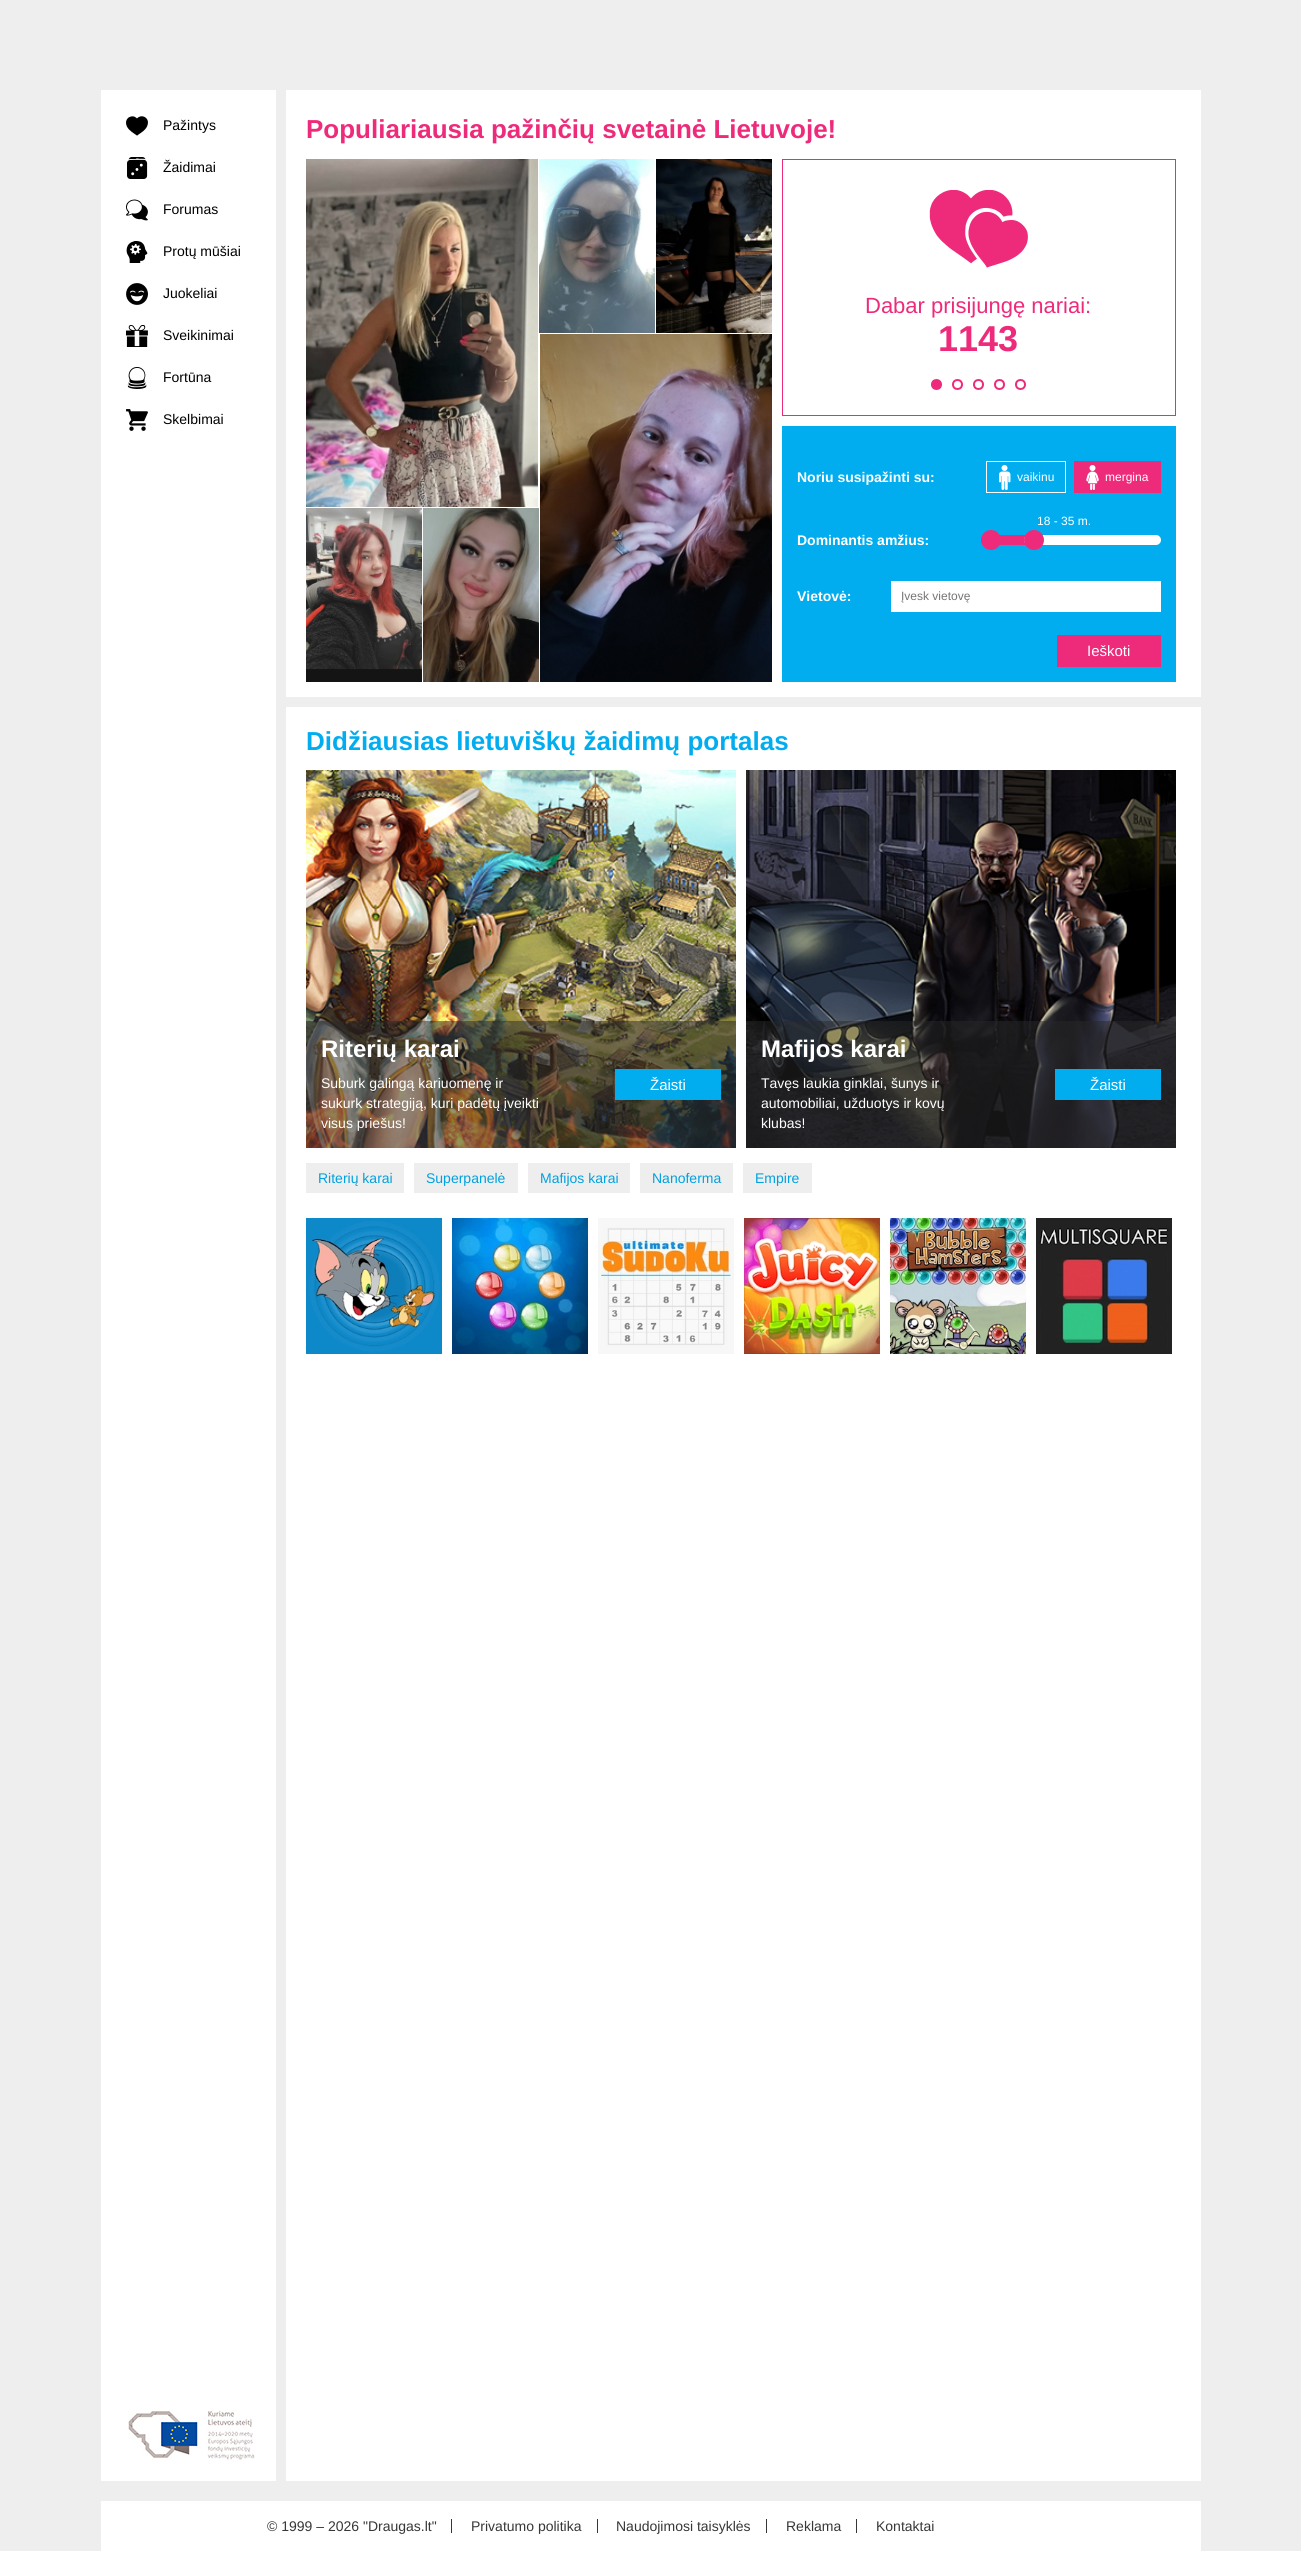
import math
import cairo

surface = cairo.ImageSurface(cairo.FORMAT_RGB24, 1301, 2551)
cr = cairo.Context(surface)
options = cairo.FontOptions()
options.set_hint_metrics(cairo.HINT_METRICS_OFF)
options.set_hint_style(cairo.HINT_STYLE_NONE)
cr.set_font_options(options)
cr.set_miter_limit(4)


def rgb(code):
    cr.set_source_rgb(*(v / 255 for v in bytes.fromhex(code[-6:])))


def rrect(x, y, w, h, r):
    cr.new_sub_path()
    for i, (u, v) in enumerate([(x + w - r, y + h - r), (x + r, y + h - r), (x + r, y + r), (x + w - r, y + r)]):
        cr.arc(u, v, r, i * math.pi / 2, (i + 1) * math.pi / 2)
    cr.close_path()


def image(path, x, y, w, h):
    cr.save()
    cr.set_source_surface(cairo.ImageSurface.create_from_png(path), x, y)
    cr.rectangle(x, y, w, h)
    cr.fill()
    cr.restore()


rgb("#eeeeee")
cr.paint()
rgb("#ffffff")
cr.rectangle(101, 90, 1100, 2461)
cr.fill()
rgb("#eeeeee")
cr.rectangle(101, 2481, 1100, 20)
cr.fill()
image("img/1.png", 126, 116, 22, 20)
image("img/2.png", 127, 157, 21, 22)
image("img/3.png", 126, 199, 22, 22)
image("img/4.png", 126, 241, 22, 22)
image("img/5.png", 126, 283, 22, 22)
image("img/6.png", 126, 325, 22, 22)
image("img/7.png", 127, 367, 20, 22)
image("img/8.png", 126, 409, 22, 22)
image("img/9.png", 128, 2410, 127, 50)
cr.rectangle(276, 90, 10, 2391)
cr.fill()
image("img/10.png", 306, 159, 232, 348)
image("img/11.png", 539, 159, 116, 174)
image("img/12.png", 656, 159, 116, 174)
image("img/13.png", 306, 508, 116, 174)
image("img/14.png", 423, 508, 116, 174)
image("img/15.png", 540, 334, 232, 348)
cr.rectangle(782.5, 159.5, 393, 256)
rgb("#ee2a7b")
cr.set_line_width(1)
cr.stroke()
image("img/16.png", 929, 190, 99, 78)
cr.arc(936.5, 384.5, 4.5, 0, 2 * math.pi)
cr.fill_preserve()
cr.set_line_width(2)
cr.stroke()
cr.arc(957.5, 384.5, 4.5, 0, 2 * math.pi)
cr.stroke()
cr.arc(978.5, 384.5, 4.5, 0, 2 * math.pi)
cr.stroke()
cr.arc(999.5, 384.5, 4.5, 0, 2 * math.pi)
cr.stroke()
cr.arc(1020.5, 384.5, 4.5, 0, 2 * math.pi)
cr.stroke()
rgb("#01adef")
cr.rectangle(782, 426, 394, 256)
cr.fill()
cr.rectangle(986.5, 461.5, 79, 31)
rgb("#ffffff")
cr.set_line_width(1)
cr.stroke()
image("img/17.png", 999, 465, 12, 25)
rgb("#ee2a7b")
cr.rectangle(1074, 461, 87, 32)
cr.fill()
image("img/18.png", 1086, 465, 13, 25)
rrect(981, 535, 63, 10, 5)
cr.fill()
cr.arc(991, 540, 10, 0, 2 * math.pi)
cr.fill()
rgb("#ffffff")
rrect(1024, 535, 137, 10, 5)
cr.fill()
rgb("#ee2a7b")
cr.arc(1034, 540, 10, 0, 2 * math.pi)
cr.fill()
for x, y, w, h, color in [
    (891, 581, 270, 31, "#ffffff"),
    (1057, 635, 104, 32, "#ee2a7b"),
    (286, 697, 915, 10, "#eeeeee"),
]:
    rgb(color)
    cr.rectangle(x, y, w, h)
    cr.fill()
image("img/19.png", 306, 770, 430, 378)
cr.set_source_rgba(0.157, 0.157, 0.157, 0.5)
cr.rectangle(306, 1021, 430, 127)
cr.fill()
rgb("#01adef")
cr.rectangle(615, 1069, 106, 31)
cr.fill()
image("img/20.png", 746, 770, 430, 378)
cr.set_source_rgba(0.157, 0.157, 0.157, 0.5)
cr.rectangle(746, 1021, 430, 127)
cr.fill()
rgb("#01adef")
cr.rectangle(1055, 1069, 106, 31)
cr.fill()
rgb("#eeeeee")
cr.rectangle(306, 1163, 98, 30)
cr.rectangle(414, 1163, 104, 30)
cr.rectangle(528, 1163, 102, 30)
cr.rectangle(640, 1163, 93, 30)
cr.rectangle(743, 1163, 69, 30)
cr.fill()
image("img/21.png", 306, 1218, 136, 136)
image("img/22.png", 452, 1218, 136, 136)
image("img/23.png", 598, 1218, 136, 136)
image("img/24.png", 744, 1218, 136, 136)
image("img/25.png", 890, 1218, 136, 136)
image("img/26.png", 1036, 1218, 136, 136)
for x, y, w, h, color in [
    (451, 2519, 1, 14, "#373737"),
    (597, 2519, 1, 14, "#373737"),
    (766, 2519, 1, 14, "#373737"),
    (856, 2519, 1, 14, "#373737"),
]:
    rgb(color)
    cr.rectangle(x, y, w, h)
    cr.fill()
cr.select_font_face("Liberation Sans")
cr.set_font_size(14)
rgb("#000000")
for x, y, s in [
    (163, 130, "Pažintys"),
    (163, 172, "Žaidimai"),
    (163, 214, "Forumas"),
    (163, 256, "Protų mūšiai"),
    (163, 298, "Juokeliai"),
    (163, 340, "Sveikinimai"),
    (163, 382, "Fortūna"),
    (163, 424, "Skelbimai"),
]:
    cr.move_to(x, y)
    cr.show_text(s)
cr.select_font_face("Liberation Sans", cairo.FONT_SLANT_NORMAL, cairo.FONT_WEIGHT_BOLD)
cr.set_font_size(26)
rgb("#ee2a7b")
cr.move_to(306, 138)
cr.show_text("Populiariausia pažinčių svetainė Lietuvoje!")
cr.select_font_face("Liberation Sans")
cr.set_font_size(22)
cr.move_to(865, 313)
cr.show_text("Dabar prisijungę nariai:")
cr.select_font_face("Liberation Sans", cairo.FONT_SLANT_NORMAL, cairo.FONT_WEIGHT_BOLD)
cr.set_font_size(36)
cr.move_to(938, 351)
cr.show_text("1143")
cr.set_font_size(14)
rgb("#ffffff")
cr.move_to(797, 482)
cr.show_text("Noriu susipažinti su:")
cr.select_font_face("Liberation Sans")
cr.set_font_size(12)
for x, y, s in [
    (1017, 481, "vaikinu"),
    (1105, 481, "mergina"),
    (1037, 525, "18 - 35 m."),
]:
    cr.move_to(x, y)
    cr.show_text(s)
cr.select_font_face("Liberation Sans", cairo.FONT_SLANT_NORMAL, cairo.FONT_WEIGHT_BOLD)
cr.set_font_size(14)
cr.move_to(797, 545)
cr.show_text("Dominantis amžius:")
cr.move_to(797, 601)
cr.show_text("Vietovė:")
cr.select_font_face("Liberation Sans")
cr.set_font_size(12)
rgb("#757575")
cr.move_to(901, 600)
cr.show_text("Įvesk vietovę")
cr.set_font_size(15)
rgb("#ffffff")
cr.move_to(1087, 656)
cr.show_text("Ieškoti")
cr.select_font_face("Liberation Sans", cairo.FONT_SLANT_NORMAL, cairo.FONT_WEIGHT_BOLD)
cr.set_font_size(26)
rgb("#01adef")
cr.move_to(306, 750)
cr.show_text("Didžiausias lietuviškų žaidimų portalas")
cr.set_font_size(24)
rgb("#ffffff")
cr.move_to(321, 1057)
cr.show_text("Riterių karai")
cr.select_font_face("Liberation Sans")
cr.set_font_size(14)
for x, y, s in [
    (321, 1088, "Suburk galingą kariuomenę ir"),
    (321, 1108, "sukurk strategiją, kuri padėtų įveikti"),
    (321, 1128, "visus priešus!"),
]:
    cr.move_to(x, y)
    cr.show_text(s)
cr.set_font_size(15)
cr.move_to(650, 1090)
cr.show_text("Žaisti")
cr.select_font_face("Liberation Sans", cairo.FONT_SLANT_NORMAL, cairo.FONT_WEIGHT_BOLD)
cr.set_font_size(24)
cr.move_to(761, 1057)
cr.show_text("Mafijos karai")
cr.select_font_face("Liberation Sans")
cr.set_font_size(14)
for x, y, s in [
    (761, 1088, "Tavęs laukia ginklai, šunys ir"),
    (761, 1108, "automobiliai, užduotys ir kovų"),
    (761, 1128, "klubas!"),
]:
    cr.move_to(x, y)
    cr.show_text(s)
cr.set_font_size(15)
cr.move_to(1090, 1090)
cr.show_text("Žaisti")
cr.set_font_size(14)
rgb("#00a1e0")
for x, y, s in [
    (318, 1183, "Riterių karai"),
    (426, 1183, "Superpanelė"),
    (540, 1183, "Mafijos karai"),
    (652, 1183, "Nanoferma"),
    (755, 1183, "Empire"),
]:
    cr.move_to(x, y)
    cr.show_text(s)
rgb("#373737")
for x, y, s in [
    (267, 2531, "© 1999 – 2026 \"Draugas.lt\""),
    (471, 2531, "Privatumo politika"),
    (616, 2531, "Naudojimosi taisyklės"),
    (786, 2531, "Reklama"),
    (876, 2531, "Kontaktai"),
]:
    cr.move_to(x, y)
    cr.show_text(s)
surface.write_to_png("page.png")
